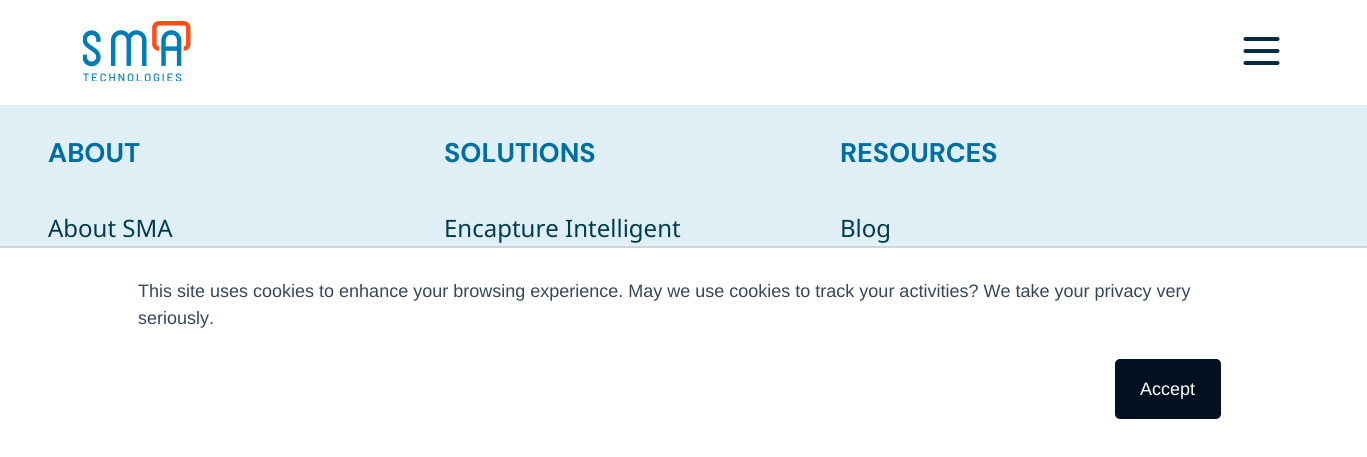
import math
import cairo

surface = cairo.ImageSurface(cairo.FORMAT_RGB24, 1367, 457)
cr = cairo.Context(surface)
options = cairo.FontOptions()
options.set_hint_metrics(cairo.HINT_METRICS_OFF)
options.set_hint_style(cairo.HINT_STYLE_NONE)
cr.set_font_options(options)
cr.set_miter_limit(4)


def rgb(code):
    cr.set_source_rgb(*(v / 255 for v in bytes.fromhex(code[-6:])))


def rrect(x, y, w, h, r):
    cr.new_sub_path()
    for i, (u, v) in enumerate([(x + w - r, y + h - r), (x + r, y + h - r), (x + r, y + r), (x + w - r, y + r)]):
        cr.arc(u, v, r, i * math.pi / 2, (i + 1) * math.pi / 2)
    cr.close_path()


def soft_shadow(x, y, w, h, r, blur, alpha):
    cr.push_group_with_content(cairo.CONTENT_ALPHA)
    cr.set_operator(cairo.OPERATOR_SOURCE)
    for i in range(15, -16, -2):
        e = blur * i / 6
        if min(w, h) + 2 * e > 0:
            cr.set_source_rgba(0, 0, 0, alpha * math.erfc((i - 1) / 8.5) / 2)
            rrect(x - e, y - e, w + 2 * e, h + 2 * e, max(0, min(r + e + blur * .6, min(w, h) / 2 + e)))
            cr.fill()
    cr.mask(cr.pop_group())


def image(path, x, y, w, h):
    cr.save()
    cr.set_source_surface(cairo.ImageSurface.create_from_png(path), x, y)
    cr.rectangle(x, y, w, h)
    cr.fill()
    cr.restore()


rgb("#e0eff5")
cr.paint()
rgb("#ffffff")
cr.rectangle(0, 0, 1367, 105)
cr.fill()
image("img/1.png", 83, 21, 108, 60)
cr.new_path()
cr.move_to(1245.5, 39)
cr.line_to(1277.5, 39)
cr.move_to(1245.5, 51)
cr.line_to(1277.5, 51)
cr.move_to(1245.5, 63)
cr.line_to(1277.5, 63)
rgb("#062944")
cr.set_line_width(4)
cr.set_line_cap(cairo.LINE_CAP_ROUND)
cr.set_line_join(cairo.LINE_JOIN_ROUND)
cr.stroke()
rgb("#eaf0f6")
soft_shadow(0, 245, 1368, 211, 0, 2, 1)
rgb("#ffffff")
cr.rectangle(0, 248, 1367, 209)
cr.fill()
rgb("#cbd6e2")
cr.rectangle(0, 246, 1367, 2)
cr.fill()
rgb("#01111f")
rrect(1116, 360, 104, 58, 4)
cr.fill_preserve()
cr.set_line_width(2)
cr.set_line_cap(cairo.LINE_CAP_BUTT)
cr.set_line_join(cairo.LINE_JOIN_MITER)
cr.stroke()
cr.select_font_face("DM Sans", cairo.FONT_SLANT_NORMAL, cairo.FONT_WEIGHT_BOLD)
cr.set_font_size(27)
rgb("#006ea0")
cr.move_to(48, 162)
cr.show_text("ABOUT")
cr.select_font_face("Noto Sans")
cr.set_font_size(24)
rgb("#003d4c")
cr.move_to(48, 237)
cr.show_text("About SMA")
cr.select_font_face("DM Sans", cairo.FONT_SLANT_NORMAL, cairo.FONT_WEIGHT_BOLD)
cr.set_font_size(27)
rgb("#006ea0")
cr.move_to(444, 162)
cr.show_text("SOLUTIONS")
cr.select_font_face("Noto Sans")
cr.set_font_size(24)
rgb("#003d4c")
cr.move_to(444, 237)
cr.show_text("Encapture Intelligent")
cr.select_font_face("DM Sans", cairo.FONT_SLANT_NORMAL, cairo.FONT_WEIGHT_BOLD)
cr.set_font_size(27)
rgb("#006ea0")
cr.move_to(840, 162)
cr.show_text("RESOURCES")
cr.select_font_face("Noto Sans")
cr.set_font_size(24)
rgb("#003d4c")
cr.move_to(840, 237)
cr.show_text("Blog")
cr.select_font_face("Liberation Sans")
cr.set_font_size(18)
rgb("#33475b")
cr.move_to(138, 297)
cr.show_text("This site uses cookies to enhance your browsing experience. May we use cookies to track your activities? We take your privacy very")
cr.move_to(138, 324)
cr.show_text("seriously.")
rgb("#ffffff")
cr.move_to(1140, 395)
cr.show_text("Accept")
surface.write_to_png("page.png")
